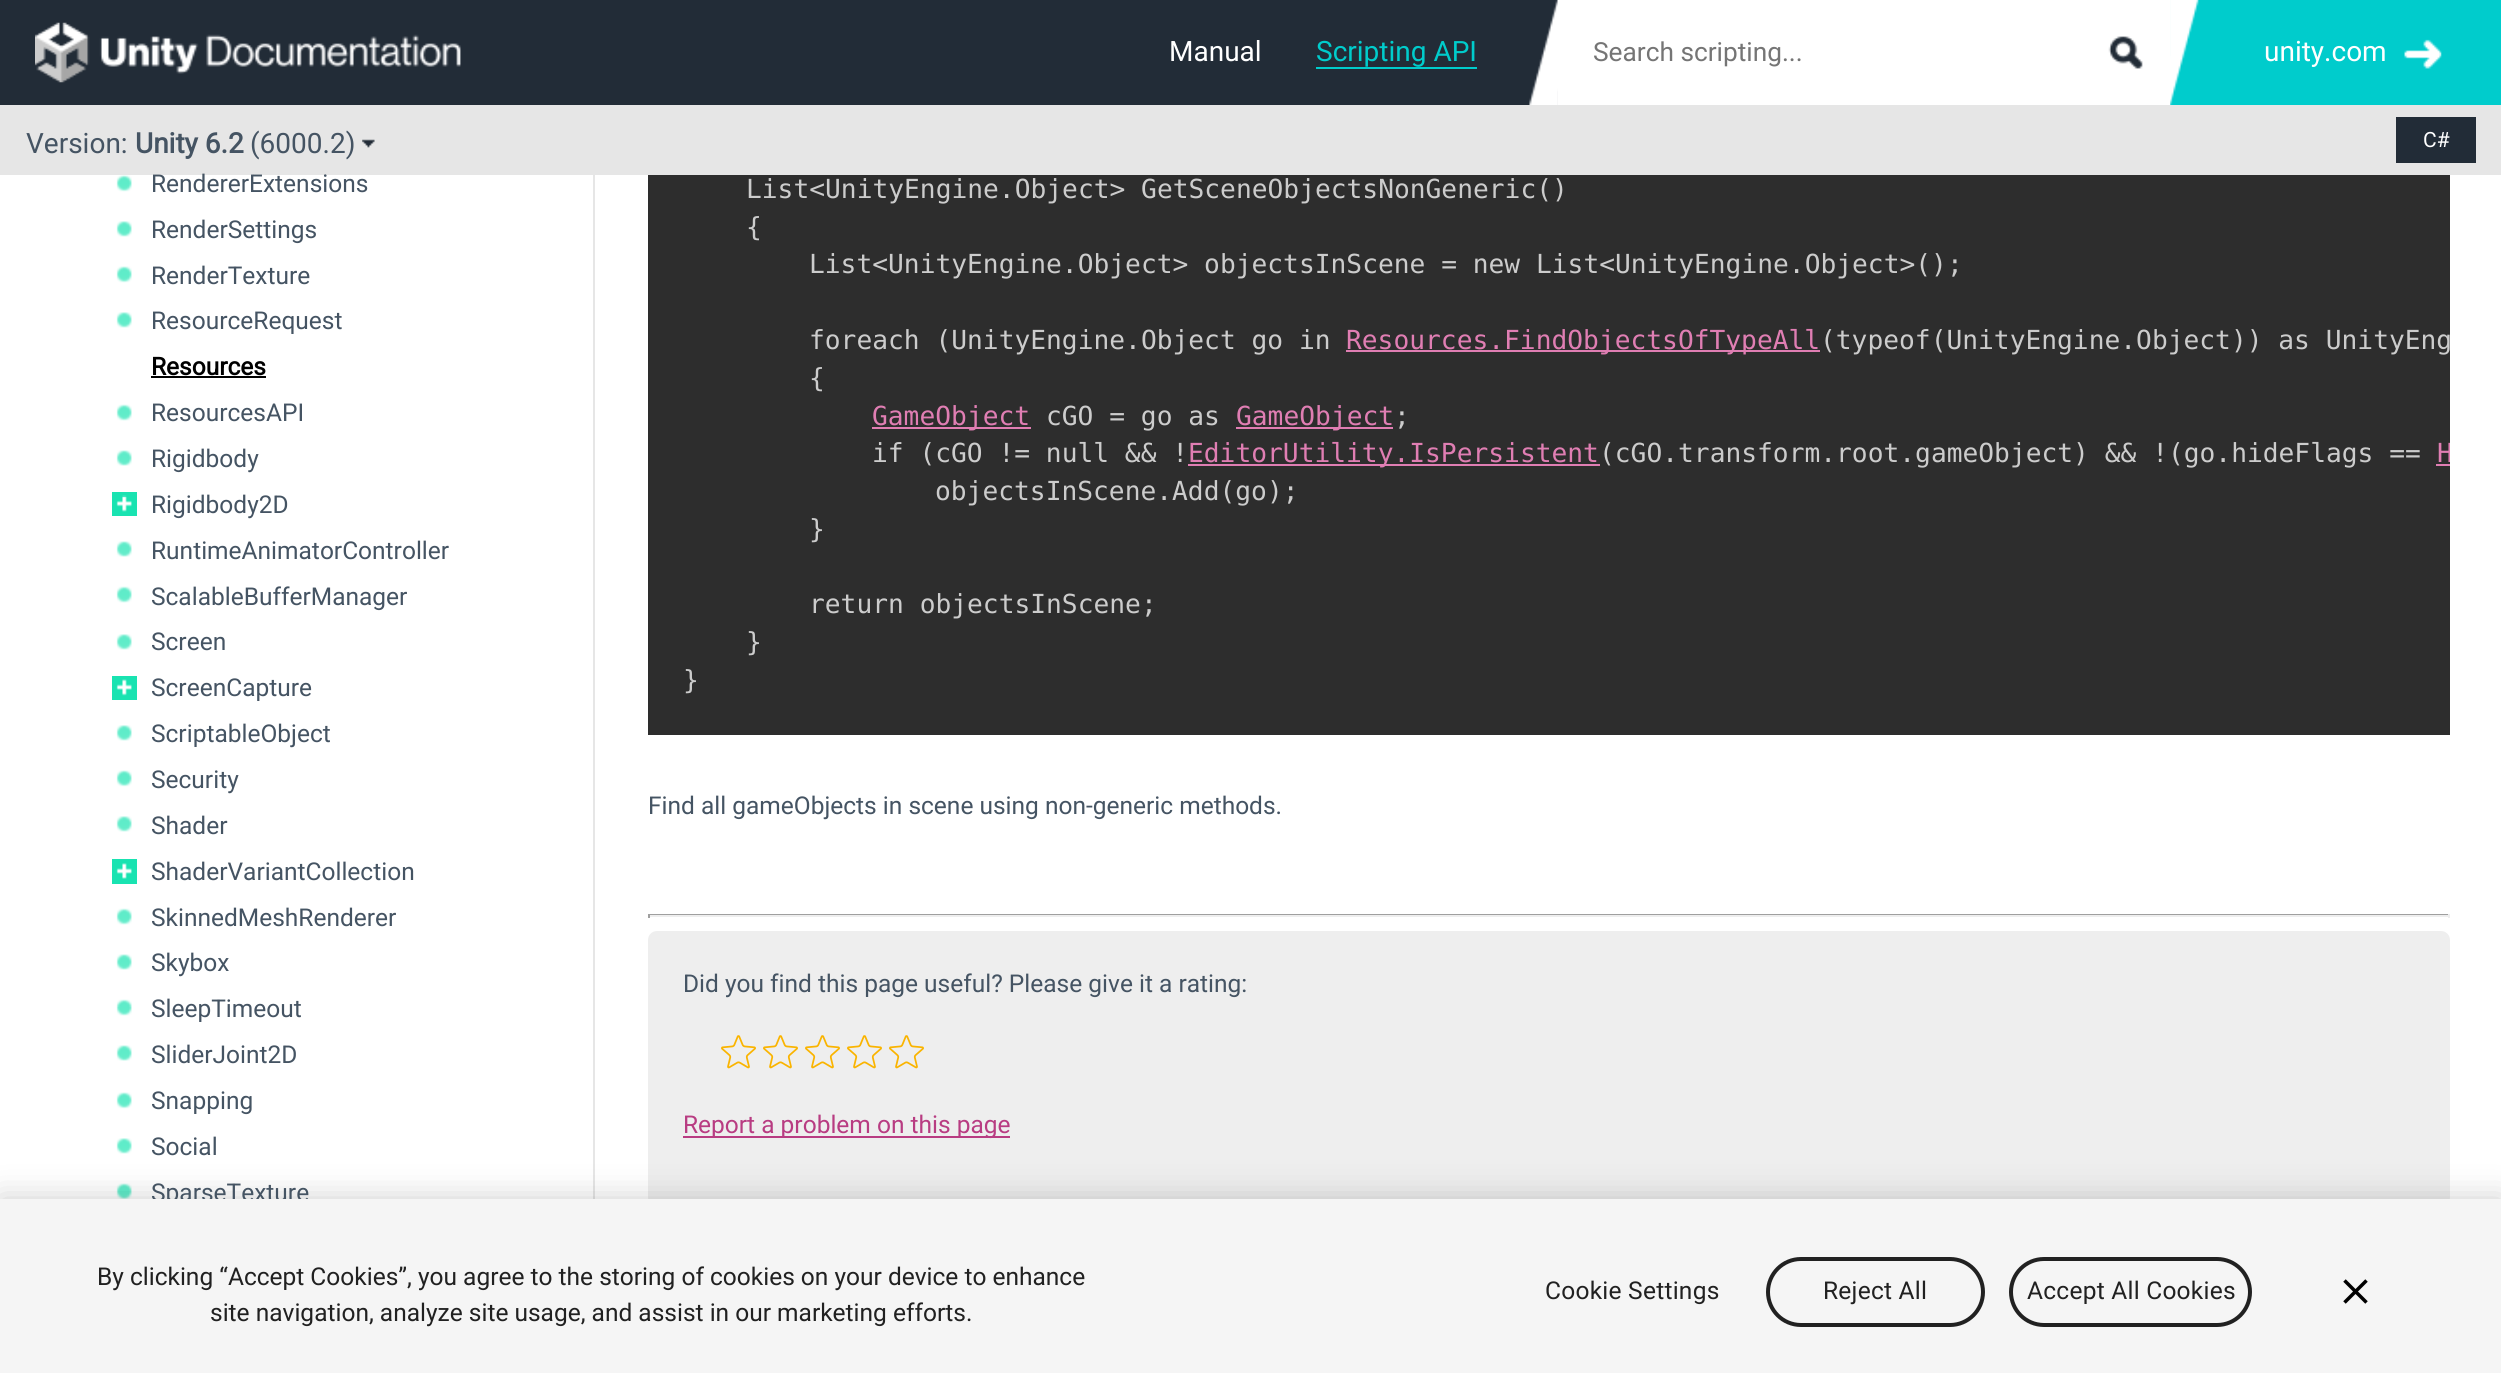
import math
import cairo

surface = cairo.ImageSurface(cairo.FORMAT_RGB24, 2501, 1373)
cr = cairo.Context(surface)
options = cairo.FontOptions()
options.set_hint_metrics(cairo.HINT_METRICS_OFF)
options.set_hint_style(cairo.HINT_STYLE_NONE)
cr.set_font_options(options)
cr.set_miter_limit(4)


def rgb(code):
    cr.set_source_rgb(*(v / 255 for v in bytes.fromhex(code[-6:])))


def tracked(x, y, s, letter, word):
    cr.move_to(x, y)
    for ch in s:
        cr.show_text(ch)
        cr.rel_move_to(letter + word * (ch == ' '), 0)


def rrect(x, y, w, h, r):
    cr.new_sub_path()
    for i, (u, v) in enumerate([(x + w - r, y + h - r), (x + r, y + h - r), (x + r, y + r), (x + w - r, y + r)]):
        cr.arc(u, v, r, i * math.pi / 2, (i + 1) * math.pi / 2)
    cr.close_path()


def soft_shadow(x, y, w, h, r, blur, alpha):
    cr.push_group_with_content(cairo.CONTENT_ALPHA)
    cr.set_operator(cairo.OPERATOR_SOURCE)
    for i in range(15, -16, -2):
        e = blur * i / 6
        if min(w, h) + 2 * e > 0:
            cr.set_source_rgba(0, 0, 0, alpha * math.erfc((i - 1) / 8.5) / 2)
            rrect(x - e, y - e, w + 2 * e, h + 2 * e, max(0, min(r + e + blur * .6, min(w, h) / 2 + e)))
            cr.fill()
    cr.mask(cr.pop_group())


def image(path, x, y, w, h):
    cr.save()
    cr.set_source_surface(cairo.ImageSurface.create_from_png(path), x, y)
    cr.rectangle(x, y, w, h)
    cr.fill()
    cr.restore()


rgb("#ffffff")
cr.paint()
rgb("#222c37")
cr.rectangle(0, 0, 1558, 105)
cr.fill()
image("img/1.png", 35, 22, 426, 61)
rgb("#00cccc")
cr.rectangle(1316, 67, 161, 2)
cr.fill()
image("img/2.png", 1529, 0, 29, 105)
image("img/3.png", 2108, 36, 35, 33)
cr.rectangle(2170, 0, 331, 105)
cr.fill()
image("img/4.png", 2170, 0, 29, 105)
image("img/5.png", 2404, 39, 38, 30)
rgb("#e6e6e6")
cr.rectangle(0, 105, 2501, 70)
cr.fill()
image("img/6.png", 362, 139, 13, 9)
rgb("#222c37")
cr.rectangle(2396, 117, 80, 46)
cr.fill()
rgb("#e6e6e6")
cr.rectangle(593, 175, 2, 1024)
cr.fill()
image("img/7.png", 116, 175, 16, 17)
image("img/8.png", 116, 221, 16, 16)
image("img/7.png", 116, 266, 16, 17)
image("img/8.png", 116, 312, 16, 16)
rgb("#000000")
cr.rectangle(151, 376, 115, 2)
cr.fill()
image("img/9.png", 116, 404, 16, 17)
image("img/10.png", 116, 450, 16, 16)
rgb("#19e3b1")
cr.rectangle(112, 492, 25, 24)
cr.fill()
image("img/11.png", 116, 495, 16, 17)
image("img/10.png", 116, 541, 16, 16)
image("img/9.png", 116, 586, 16, 17)
image("img/8.png", 116, 634, 16, 16)
cr.rectangle(112, 676, 25, 24)
cr.fill()
image("img/12.png", 116, 679, 16, 17)
image("img/8.png", 116, 725, 16, 16)
image("img/7.png", 116, 770, 16, 17)
image("img/8.png", 116, 816, 16, 16)
cr.rectangle(112, 859, 25, 25)
cr.fill()
image("img/13.png", 116, 863, 16, 16)
image("img/9.png", 116, 908, 16, 17)
image("img/10.png", 116, 954, 16, 16)
image("img/14.png", 116, 999, 16, 17)
image("img/10.png", 116, 1045, 16, 16)
image("img/7.png", 116, 1092, 16, 17)
image("img/8.png", 116, 1138, 16, 16)
image("img/15.png", 116, 1183, 16, 16)
for x, y, w, h, color in [
    (648, 175, 1802, 560, "#2d2d2d"),
    (1346, 350, 474, 2, "#e07eb3"),
    (872, 427, 159, 2, "#e07eb3"),
    (1236, 427, 157, 2, "#e07eb3"),
    (1188, 464, 412, 2, "#e07eb3"),
    (2436, 464, 14, 2, "#e07eb3"),
    (648, 914, 1802, 1, "#9f9f9f"),
    (2448, 914, 2, 4, "#eeeeee"),
    (648, 915, 1802, 2, "#eeeeee"),
    (648, 914, 2, 4, "#9f9f9f"),
]:
    rgb(color)
    cr.rectangle(x, y, w, h)
    cr.fill()
rgb("#eeeeee")
rrect(648, 931, 1802, 275, 9)
cr.fill()
image("img/16.png", 721, 1035, 35, 34)
image("img/16.png", 763, 1035, 35, 34)
image("img/16.png", 805, 1035, 35, 34)
image("img/16.png", 847, 1035, 35, 34)
image("img/16.png", 889, 1035, 35, 34)
rgb("#b83c82")
cr.rectangle(683, 1136, 327, 2)
cr.fill()
rgb("#000000")
soft_shadow(0, 1199, 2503, 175, 0, 16, 0.2)
cr.select_font_face("Roboto")
cr.set_font_size(28)
rgb("#ffffff")
cr.move_to(1169, 61)
cr.show_text("Manual")
rgb("#00cccc")
cr.move_to(1316, 61)
cr.show_text("Scripting API")
cr.set_font_size(26.25)
rgb("#757575")
cr.move_to(1593, 61)
cr.show_text("Search scripting...")
cr.set_font_size(28)
rgb("#ffffff")
cr.move_to(2264, 61)
cr.show_text("unity.com")
rgb("#455463")
cr.move_to(26, 153)
cr.show_text("Version:")
cr.select_font_face("Roboto", cairo.FONT_SLANT_NORMAL, cairo.FONT_WEIGHT_BOLD)
cr.move_to(135, 153)
cr.show_text("Unity 6.2")
cr.select_font_face("Roboto")
cr.move_to(250, 153)
cr.show_text("(6000.2)")
cr.set_font_size(21)
rgb("#ffffff")
cr.move_to(2423, 147)
cr.show_text("C#")
cr.set_font_size(24.5)
rgb("#455463")
for x, y, s in [
    (151, 192, "RendererExtensions"),
    (151, 238, "RenderSettings"),
    (151, 284, "RenderTexture"),
    (151, 329, "ResourceRequest"),
]:
    cr.move_to(x, y)
    cr.show_text(s)
cr.select_font_face("Roboto", cairo.FONT_SLANT_NORMAL, cairo.FONT_WEIGHT_BOLD)
rgb("#000000")
cr.move_to(151, 375)
cr.show_text("Resources")
cr.select_font_face("Roboto")
rgb("#455463")
for x, y, s in [
    (151, 421, "ResourcesAPI"),
    (151, 467, "Rigidbody"),
    (151, 513, "Rigidbody2D"),
    (151, 559, "RuntimeAnimatorController"),
    (151, 605, "ScalableBufferManager"),
    (151, 650, "Screen"),
    (151, 696, "ScreenCapture"),
    (151, 742, "ScriptableObject"),
    (151, 788, "Security"),
    (151, 834, "Shader"),
    (151, 880, "ShaderVariantCollection"),
    (151, 926, "SkinnedMeshRenderer"),
    (151, 971, "Skybox"),
    (151, 1017, "SleepTimeout"),
    (151, 1063, "SliderJoint2D"),
    (151, 1109, "Snapping"),
    (151, 1155, "Social"),
    (151, 1201, "SparseTexture"),
]:
    cr.move_to(x, y)
    cr.show_text(s)
cr.select_font_face("DejaVu Sans Mono")
cr.set_font_size(26.25)
rgb("#cccccc")
for x, y, s in [
    (746, 198, "List<UnityEngine.Object> GetSceneObjectsNonGeneric()"),
    (746, 236, "{"),
    (809, 273, "List<UnityEngine.Object> objectsInScene = new List<UnityEngine.Object>();"),
    (809, 349, "foreach (UnityEngine.Object go in"),
]:
    cr.move_to(x, y)
    cr.show_text(s)
rgb("#e07eb3")
cr.move_to(1346, 349)
cr.show_text("Resources.FindObjectsOfTypeAll")
cr.save()
cr.rectangle(648, 0, 1802, 735)
cr.clip()
rgb("#cccccc")
cr.move_to(1820, 349)
cr.show_text("(typeof(UnityEngine.Object)) as UnityEng")
cr.restore()
rgb("#cccccc")
cr.move_to(809, 387)
cr.show_text("{")
rgb("#e07eb3")
cr.move_to(872, 425)
cr.show_text("GameObject")
rgb("#cccccc")
cr.move_to(1046, 425)
cr.show_text("cGO = go as")
rgb("#e07eb3")
cr.move_to(1236, 425)
cr.show_text("GameObject")
rgb("#cccccc")
cr.move_to(1394, 425)
cr.show_text(";")
cr.move_to(872, 462)
cr.show_text("if (cGO != null && !")
rgb("#e07eb3")
cr.move_to(1188, 462)
cr.show_text("EditorUtility.IsPersistent")
rgb("#cccccc")
cr.move_to(1599, 462)
cr.show_text("(cGO.transform.root.gameObject) && !(go.hideFlags ==")
cr.save()
cr.rectangle(648, 0, 1802, 735)
cr.clip()
rgb("#e07eb3")
cr.move_to(2437, 462)
cr.show_text("H")
cr.restore()
for x, y, s in [
    (935, 500, "objectsInScene.Add(go);"),
    (809, 538, "}"),
    (809, 613, "return objectsInScene;"),
    (746, 651, "}"),
    (683, 689, "}"),
]:
    cr.move_to(x, y)
    cr.show_text(s)
cr.select_font_face("Roboto")
cr.set_font_size(24.5)
rgb("#455463")
cr.move_to(648, 814)
cr.show_text("Find all gameObjects in scene using non-generic methods.")
cr.move_to(683, 992)
cr.show_text("Did you find this page useful? Please give it a rating:")
rgb("#b83c82")
cr.move_to(683, 1133)
cr.show_text("Report a problem on this page")
rgb("#f5f5f5")
cr.rectangle(0, 1199, 2501, 174)
cr.fill()
rgb("#212121")
cr.move_to(97, 1285)
cr.show_text("By clicking “Accept Cookies”, you agree to the storing of cookies on your device to enhance")
cr.move_to(210, 1321)
cr.show_text("site navigation, analyze site usage, and assist in our marketing efforts.")
tracked(1545, 1299, "Cookie Settings", 0.25, 0)
rrect(1768, 1259, 215, 66, 33)
cr.set_line_width(4)
cr.stroke()
tracked(1823, 1299, "Reject All", 0.25, 0)
rrect(2011, 1259, 239, 66, 33)
cr.stroke()
tracked(2027, 1299, "Accept All Cookies", 0.25, 0)
image("img/17.png", 2343, 1279, 25, 25)
surface.write_to_png("page.png")
